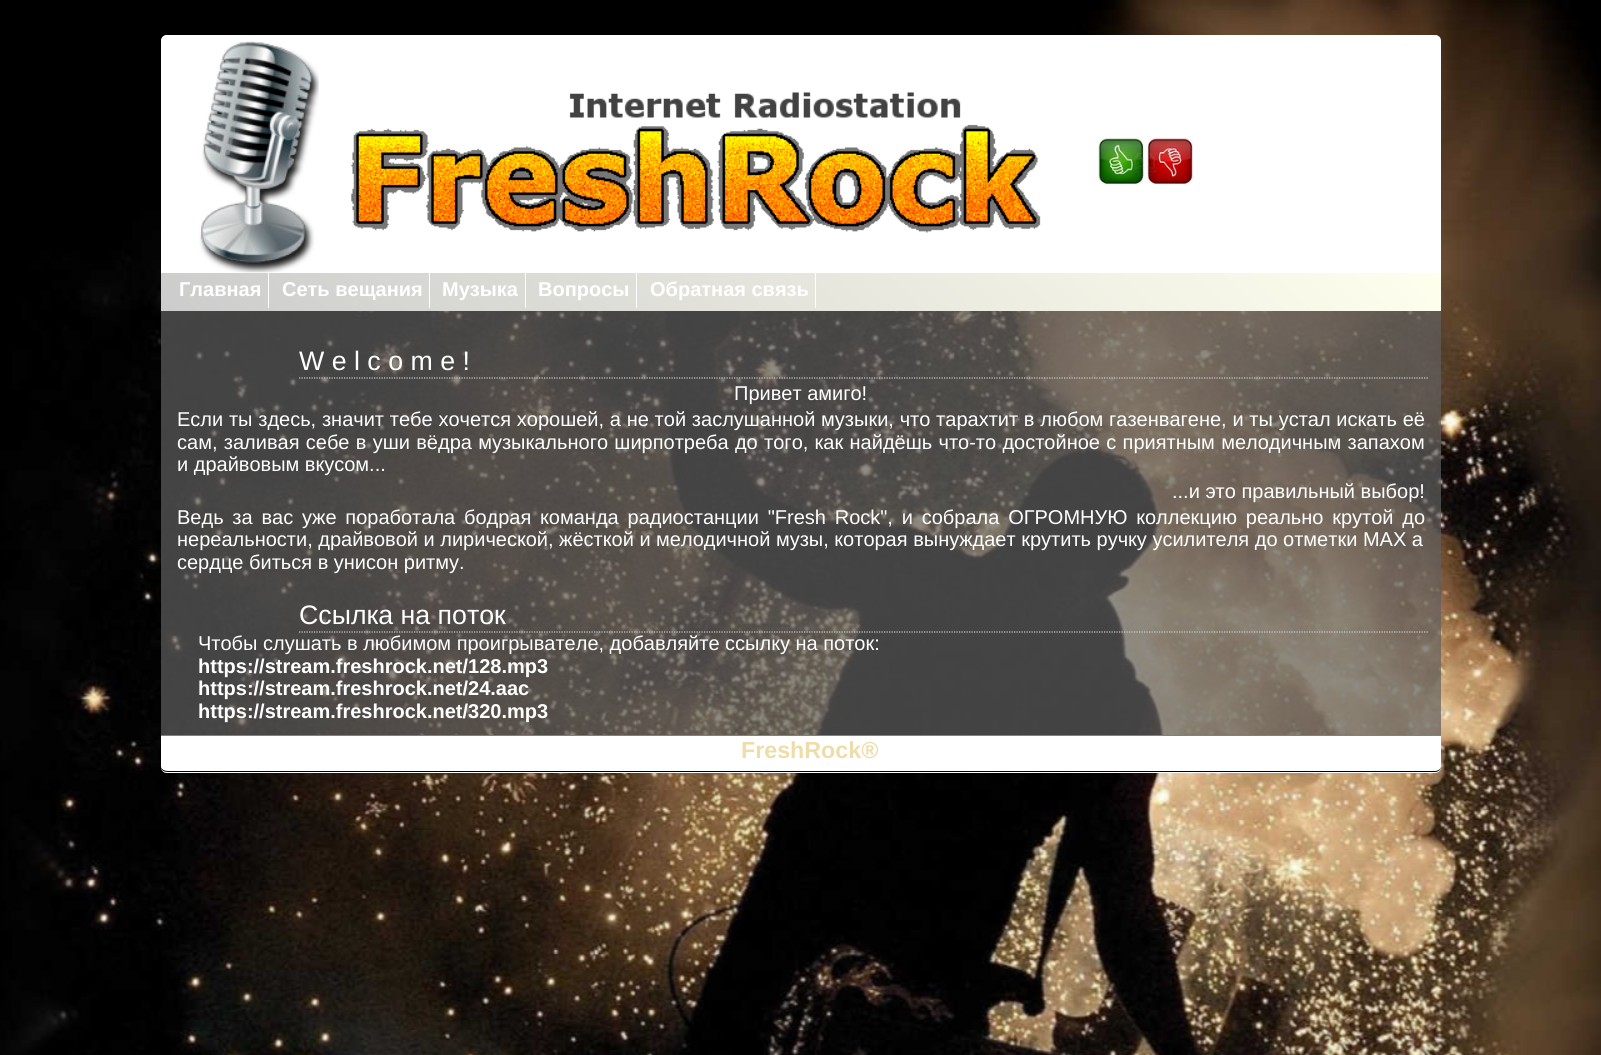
import math
import cairo

surface = cairo.ImageSurface(cairo.FORMAT_RGB24, 1601, 1055)
cr = cairo.Context(surface)
options = cairo.FontOptions()
options.set_hint_metrics(cairo.HINT_METRICS_OFF)
options.set_hint_style(cairo.HINT_STYLE_NONE)
cr.set_font_options(options)
cr.set_miter_limit(4)


def rgb(code):
    cr.set_source_rgb(*(v / 255 for v in bytes.fromhex(code[-6:])))


def tracked(x, y, s, letter, word):
    cr.move_to(x, y)
    for ch in s:
        cr.show_text(ch)
        cr.rel_move_to(letter + word * (ch == ' '), 0)


def rrect(x, y, w, h, r):
    cr.new_sub_path()
    for i, (u, v) in enumerate([(x + w - r, y + h - r), (x + r, y + h - r), (x + r, y + r), (x + w - r, y + r)]):
        cr.arc(u, v, r, i * math.pi / 2, (i + 1) * math.pi / 2)
    cr.close_path()


def image(path, x, y, w, h):
    cr.save()
    cr.set_source_surface(cairo.ImageSurface.create_from_png(path), x, y)
    cr.rectangle(x, y, w, h)
    cr.fill()
    cr.restore()


rgb("#ffffff")
cr.paint()
image("img/1.png", 0, 0, 1601, 1055)
cr.set_source_rgba(0.376, 0.376, 0.376, 0.7)
rrect(161, 35, 1280, 738, 6)
cr.fill()
rgb("#ffffff")
cr.new_path()
cr.move_to(167, 35)
cr.line_to(1435, 35)
cr.curve_to(1438.5, 35, 1441, 37.5, 1441, 41)
cr.line_to(1441, 273)
cr.line_to(161, 273)
cr.line_to(161, 41)
cr.curve_to(161, 37.5, 163.5, 35, 167, 35)
cr.close_path()
cr.fill()
image("img/2.png", 161, 35, 880, 238)
image("img/3.png", 1098, 138, 46, 46)
image("img/4.png", 1147, 138, 46, 46)
gradient = cairo.LinearGradient(472, 622, 1131, -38)
gradient.add_color_stop_rgba(0, 0.8, 0.8, 0.8, 1)
gradient.add_color_stop_rgba(1, 1, 1, 0.933, 1)
cr.set_source(gradient)
cr.rectangle(161, 273, 1280, 38)
cr.fill()
for x, y, w, h, color in [
    (268, 273, 1, 35, "#ffffff"),
    (429, 273, 1, 35, "#ffffff"),
    (525, 273, 1, 35, "#ffffff"),
    (636, 273, 1, 35, "#ffffff"),
    (815, 273, 1, 35, "#ffffff"),
]:
    rgb(color)
    cr.rectangle(x, y, w, h)
    cr.fill()
cr.new_path()
cr.move_to(299, 378)
cr.line_to(1429, 378)
rgb("#cccccc")
cr.set_line_width(1.2)
cr.set_dash([1.25, 1.25])
cr.stroke()
cr.new_path()
cr.move_to(299, 632)
cr.line_to(1429, 632)
cr.stroke()
rgb("#ffffff")
cr.new_path()
cr.move_to(161, 735)
cr.line_to(1441, 735)
cr.line_to(1441, 767)
cr.curve_to(1441, 770.5, 1438.5, 773, 1435, 773)
cr.line_to(167, 773)
cr.curve_to(163.5, 773, 161, 770.5, 161, 767)
cr.close_path()
cr.fill()
rgb("#808080")
cr.rectangle(161, 735, 1280, 1)
cr.fill()
rgb("#000000")
cr.new_path()
cr.move_to(1435, 772)
cr.curve_to(1438, 772, 1441, 770, 1441, 766)
cr.curve_to(1441, 769, 1438, 771, 1435, 771)
cr.line_to(168, 771)
cr.curve_to(165, 771, 162, 770, 161, 767)
cr.curve_to(161, 771, 165, 772, 168, 772)
cr.close_path()
cr.fill()
cr.select_font_face("Liberation Sans", cairo.FONT_SLANT_NORMAL, cairo.FONT_WEIGHT_BOLD)
cr.set_font_size(20)
rgb("#ffffff")
for x, y, s in [
    (179, 296, "Главная"),
    (282, 296, "Сеть вещания"),
    (442, 296, "Музыка"),
    (538, 296, "Вопросы"),
    (650, 296, "Обратная связь"),
]:
    cr.move_to(x, y)
    cr.show_text(s)
cr.select_font_face("Liberation Sans")
cr.set_font_size(26.75)
cr.move_to(299, 370)
cr.show_text("W e l c o m e !")
cr.set_font_size(20)
cr.move_to(734, 400)
cr.show_text("Привет амиго!")
tracked(177, 426, "Если ты здесь, значит тебе хочется хорошей, а не той заслушанной музыки, что тарахтит в любом газенвагене, и ты устал искать её", 0, 0.2)
tracked(177, 449, "сам, заливая себе в уши вёдра музыкального ширпотреба до того, как найдёшь что-то достойное с приятным мелодичным запахом", 0, 0.75)
cr.move_to(177, 471)
cr.show_text("и драйвовым вкусом...")
cr.move_to(1172, 498)
cr.show_text("...и это правильный выбор!")
tracked(177, 524, "Ведь за вас уже поработала бодрая команда радиостанции \"Fresh Rock\", и собрала ОГРОМНУЮ коллекцию реально крутой до", 0, 3.25)
cr.move_to(177, 546)
cr.show_text("нереальности, драйвовой и лирической, жёсткой и мелодичной музы, которая вынуждает крутить ручку усилителя до отметки MAX а")
cr.move_to(177, 569)
cr.show_text("сердце биться в унисон ритму.")
cr.set_font_size(26.75)
cr.move_to(299, 624)
cr.show_text("Ссылка на поток")
cr.set_font_size(20)
cr.move_to(198, 650)
cr.show_text("Чтобы слушать в любимом проигрывателе, добавляйте ссылку на поток:")
cr.select_font_face("Liberation Sans", cairo.FONT_SLANT_NORMAL, cairo.FONT_WEIGHT_BOLD)
for x, y, s in [
    (198, 673, "https://stream.freshrock.net/128.mp3"),
    (198, 695, "https://stream.freshrock.net/24.aac"),
    (198, 718, "https://stream.freshrock.net/320.mp3"),
]:
    cr.move_to(x, y)
    cr.show_text(s)
cr.set_font_size(23.25)
rgb("#eeddaa")
cr.move_to(741, 758)
cr.show_text("FreshRock®")
surface.write_to_png("page.png")
